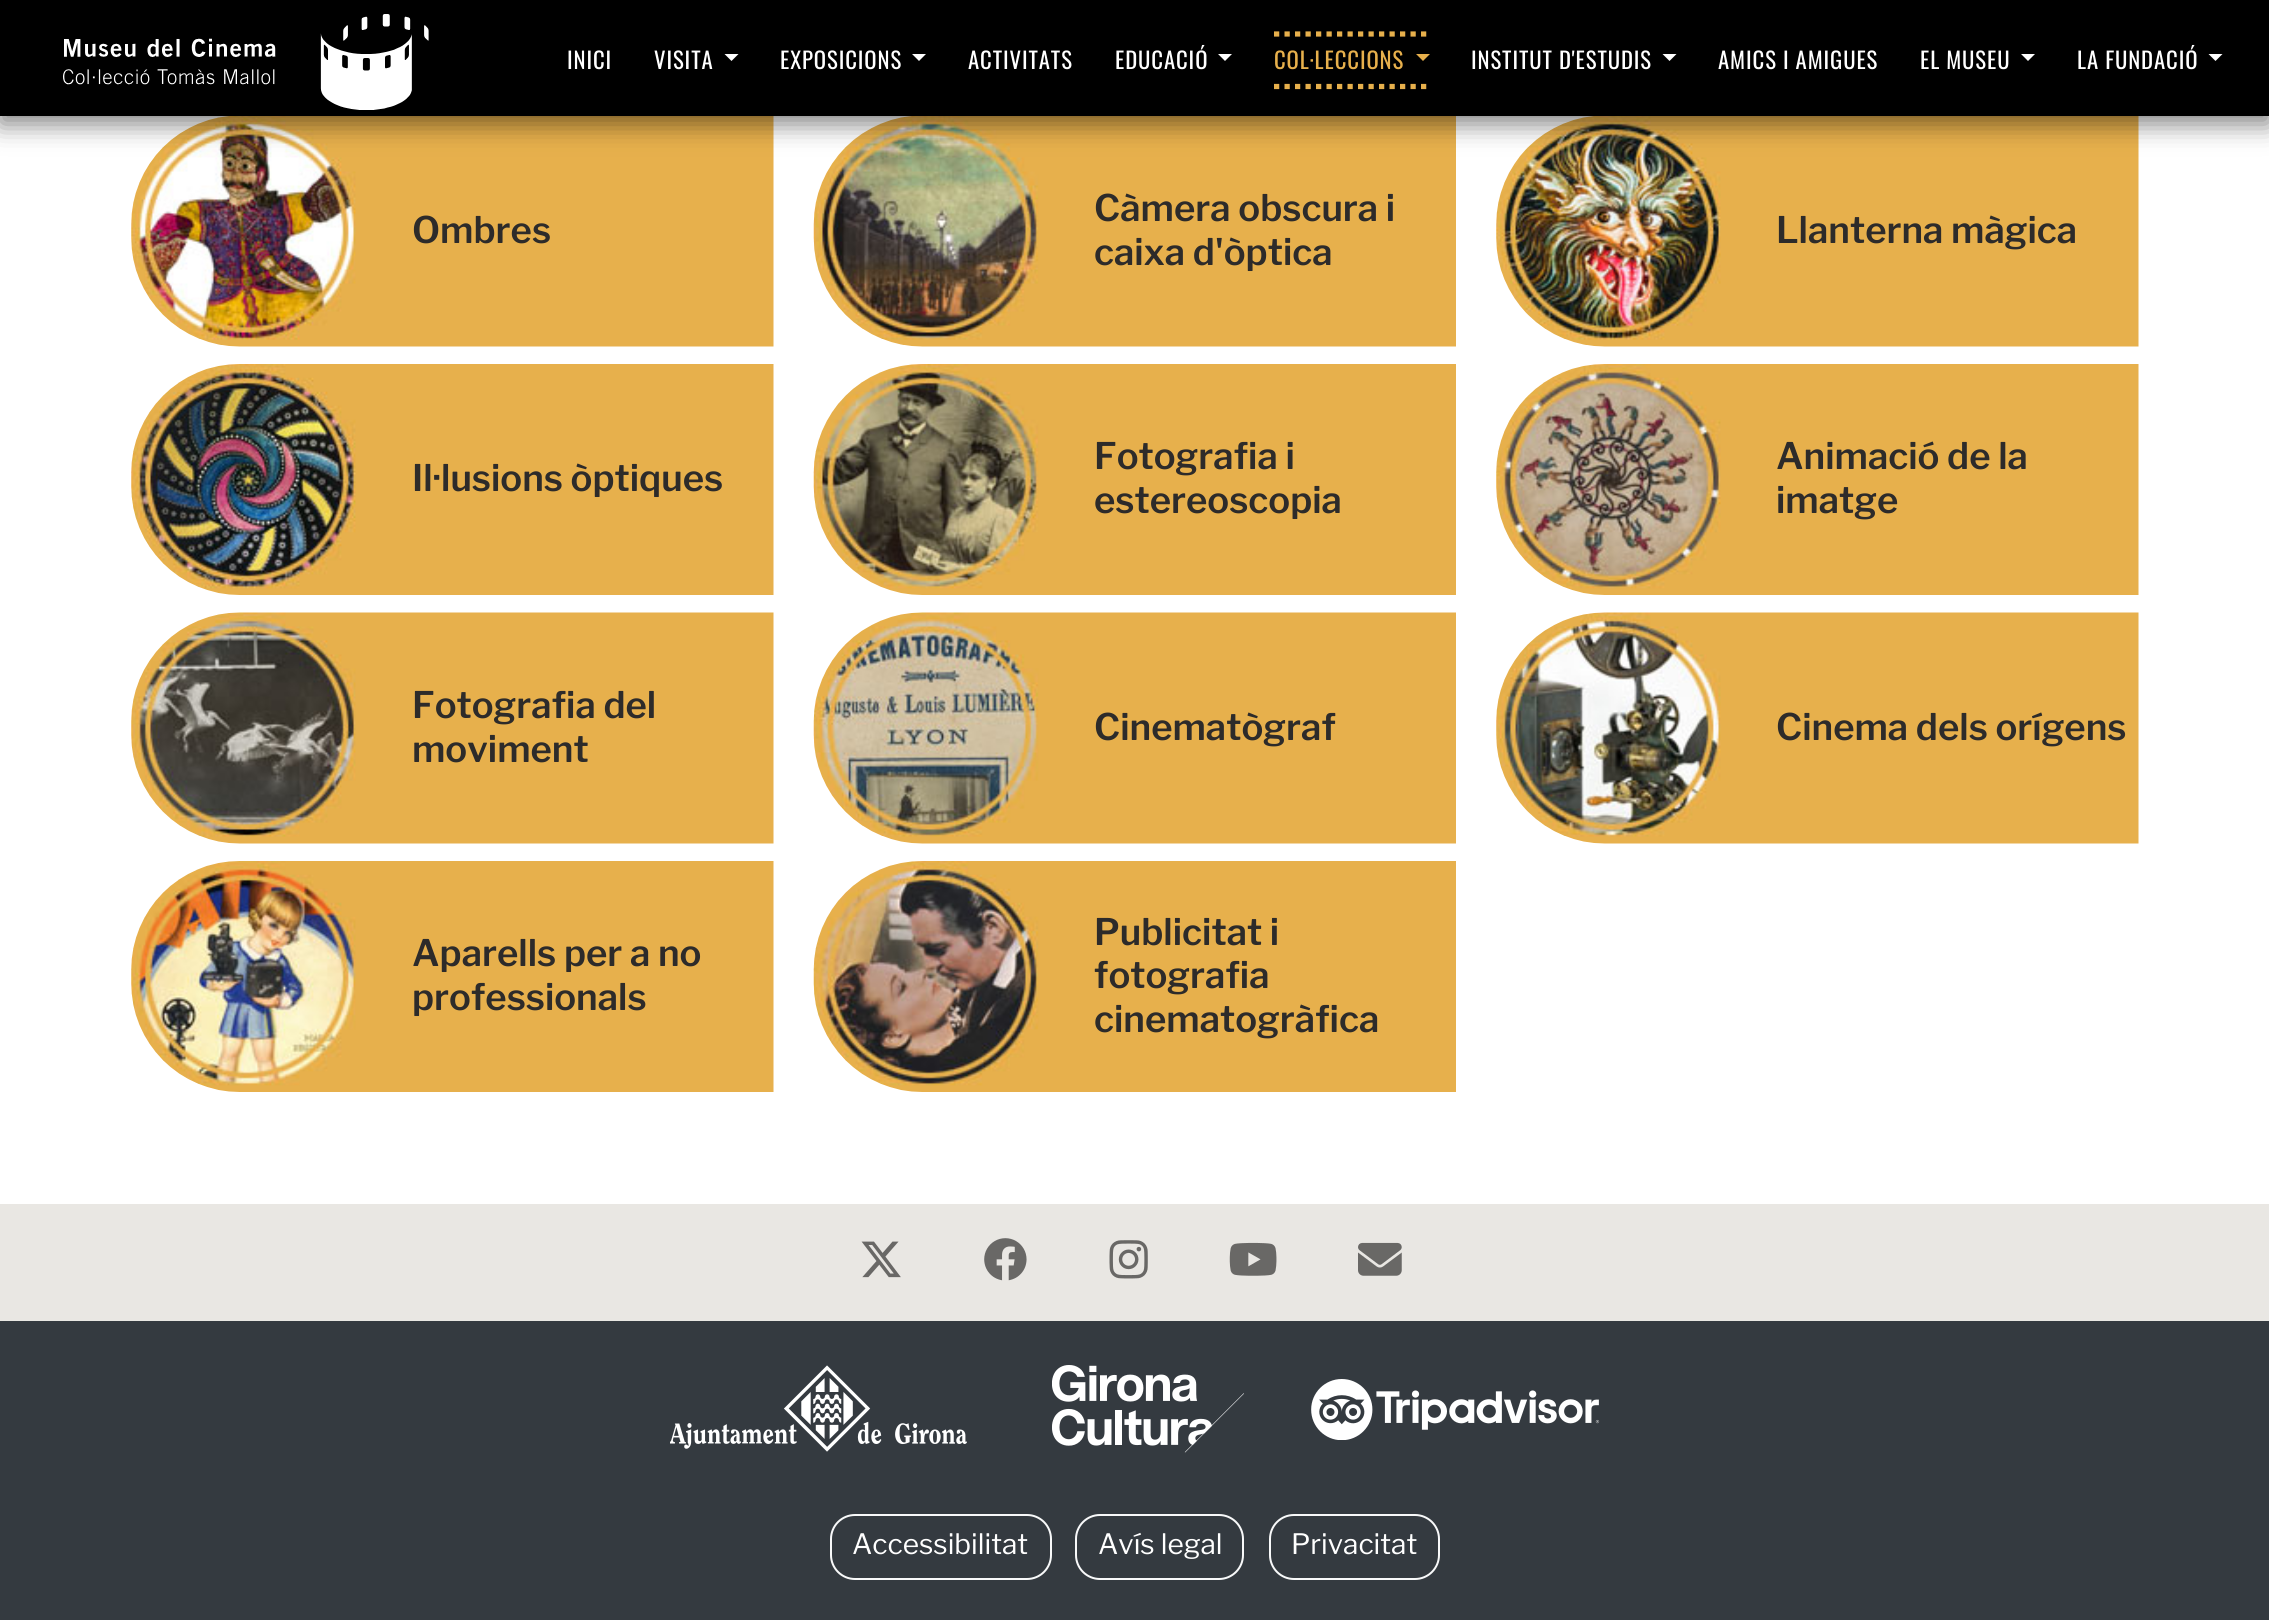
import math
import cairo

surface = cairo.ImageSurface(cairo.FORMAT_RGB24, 2269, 1620)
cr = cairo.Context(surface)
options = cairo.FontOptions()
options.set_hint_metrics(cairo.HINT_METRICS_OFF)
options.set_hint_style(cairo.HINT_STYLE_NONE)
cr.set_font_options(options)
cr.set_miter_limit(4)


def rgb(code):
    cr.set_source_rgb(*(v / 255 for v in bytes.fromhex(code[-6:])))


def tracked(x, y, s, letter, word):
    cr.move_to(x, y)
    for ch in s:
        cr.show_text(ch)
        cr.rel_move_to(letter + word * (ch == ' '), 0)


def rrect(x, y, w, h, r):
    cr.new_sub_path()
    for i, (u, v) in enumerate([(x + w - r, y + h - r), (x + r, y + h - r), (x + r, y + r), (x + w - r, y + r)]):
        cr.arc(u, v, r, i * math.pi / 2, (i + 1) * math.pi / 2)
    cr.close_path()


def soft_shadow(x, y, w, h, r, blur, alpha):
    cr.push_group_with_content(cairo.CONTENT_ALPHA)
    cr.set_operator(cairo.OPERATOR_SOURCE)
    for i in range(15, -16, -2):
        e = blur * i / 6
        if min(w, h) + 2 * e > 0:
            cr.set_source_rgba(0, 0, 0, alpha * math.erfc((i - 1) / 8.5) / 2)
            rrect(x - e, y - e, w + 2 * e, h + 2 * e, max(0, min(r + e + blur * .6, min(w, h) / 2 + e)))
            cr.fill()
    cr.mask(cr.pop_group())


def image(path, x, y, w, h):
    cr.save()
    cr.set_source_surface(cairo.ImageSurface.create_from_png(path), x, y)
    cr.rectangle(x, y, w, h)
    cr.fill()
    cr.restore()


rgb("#ffffff")
cr.paint()
image("img/2.png", 131, 116, 643, 231)
image("img/3.png", 813, 116, 643, 231)
image("img/4.png", 1496, 116, 643, 231)
rgb("#000000")
soft_shadow(0, 9, 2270, 115, 0, 13, 0.5)
rgb("#000000")
cr.rectangle(0, 0, 2269, 116)
cr.fill()
image("img/1.png", 63, 14, 366, 96)
rgb("#ffffff")
cr.new_path()
cr.move_to(724.5, 54)
cr.line_to(738.5, 54)
cr.line_to(731.5, 61)
cr.close_path()
cr.fill()
cr.new_path()
cr.move_to(912, 54)
cr.line_to(926, 54)
cr.line_to(919, 61)
cr.close_path()
cr.fill()
cr.new_path()
cr.move_to(1218, 54)
cr.line_to(1232, 54)
cr.line_to(1225, 61)
cr.close_path()
cr.fill()
cr.new_path()
cr.move_to(1274, 34)
cr.line_to(1430, 34)
rgb("#e7b04c")
cr.set_line_width(5.2)
cr.set_dash([5.25, 5.25])
cr.stroke()
cr.new_path()
cr.move_to(1274, 86.5)
cr.line_to(1430, 86.5)
cr.stroke()
cr.new_path()
cr.move_to(1416, 54)
cr.line_to(1430, 54)
cr.line_to(1423, 61)
cr.close_path()
cr.fill()
rgb("#ffffff")
cr.new_path()
cr.move_to(1662.5, 54)
cr.line_to(1676.5, 54)
cr.line_to(1669.5, 61)
cr.close_path()
cr.fill()
cr.new_path()
cr.move_to(2021, 54)
cr.line_to(2035, 54)
cr.line_to(2028, 61)
cr.close_path()
cr.fill()
cr.new_path()
cr.move_to(2208.5, 54)
cr.line_to(2222.5, 54)
cr.line_to(2215.5, 61)
cr.close_path()
cr.fill()
image("img/5.png", 131, 364, 643, 231)
image("img/6.png", 813, 364, 643, 231)
image("img/7.png", 1496, 364, 643, 231)
image("img/8.png", 131, 612, 643, 232)
image("img/9.png", 813, 612, 643, 232)
image("img/10.png", 1496, 612, 643, 232)
image("img/11.png", 131, 861, 643, 231)
image("img/12.png", 813, 861, 643, 231)
rgb("#e9e7e3")
cr.rectangle(0, 1204, 2269, 117)
cr.fill()
image("img/13.png", 861, 1241, 40, 37)
image("img/14.png", 984, 1238, 43, 43)
image("img/15.png", 1109, 1240, 39, 39)
image("img/16.png", 1229, 1242, 48, 34)
image("img/17.png", 1358, 1242, 44, 34)
rgb("#343a40")
cr.rectangle(0, 1321, 2269, 299)
cr.fill()
image("img/18.png", 670, 1365, 297, 87)
image("img/19.png", 1052, 1365, 192, 88)
image("img/20.png", 1311, 1379, 289, 61)
rrect(831, 1515, 220, 64, 24)
rgb("#f8f9fa")
cr.set_line_width(2)
cr.set_dash([])
cr.stroke()
rrect(1076, 1515, 167, 64, 24)
cr.stroke()
rrect(1270, 1515, 169, 64, 24)
cr.stroke()
cr.select_font_face("Oswald")
cr.set_font_size(22.75)
rgb("#ffffff")
for x, y, s in [
    (567, 69, "INICI"),
    (654, 69, "VISITA"),
    (780, 69, "EXPOSICIONS"),
    (968, 69, "ACTIVITATS"),
    (1115, 69, "EDUCACIÓ"),
]:
    tracked(x, y, s, 0.9, 0)
rgb("#e7b04c")
tracked(1274, 69, "COL·LECCIONS", 0.9, 0)
rgb("#ffffff")
for x, y, s in [
    (1471, 69, "INSTITUT D'ESTUDIS"),
    (1718, 69, "AMICS I AMIGUES"),
    (1920, 69, "EL MUSEU"),
    (2077, 69, "LA FUNDACIÓ"),
]:
    tracked(x, y, s, 0.9, 0)
cr.select_font_face("Libre Franklin SemiBold")
cr.set_font_size(36.5)
rgb("#2d2b2a")
for x, y, s in [
    (412, 243, "Ombres"),
    (1094, 221, "Càmera obscura i"),
    (1094, 265, "caixa d'òptica"),
    (1776, 243, "Llanterna màgica"),
    (412, 491, "Il·lusions òptiques"),
    (1094, 469, "Fotografia i"),
    (1094, 513, "estereoscopia"),
    (1776, 469, "Animació de la"),
    (1776, 513, "imatge"),
    (412, 718, "Fotografia del"),
    (412, 762, "moviment"),
    (1094, 740, "Cinematògraf"),
    (1776, 740, "Cinema dels orígens"),
    (412, 966, "Aparells per a no"),
    (412, 1010, "professionals"),
    (1094, 945, "Publicitat i"),
    (1094, 988, "fotografia"),
    (1094, 1032, "cinematogràfica"),
]:
    cr.move_to(x, y)
    cr.show_text(s)
cr.select_font_face("Libre Franklin")
cr.set_font_size(28)
rgb("#ffffff")
for x, y, s in [
    (852, 1554, "Accessibilitat"),
    (1098, 1554, "Avís legal"),
    (1291, 1554, "Privacitat"),
]:
    cr.move_to(x, y)
    cr.show_text(s)
surface.write_to_png("page.png")
